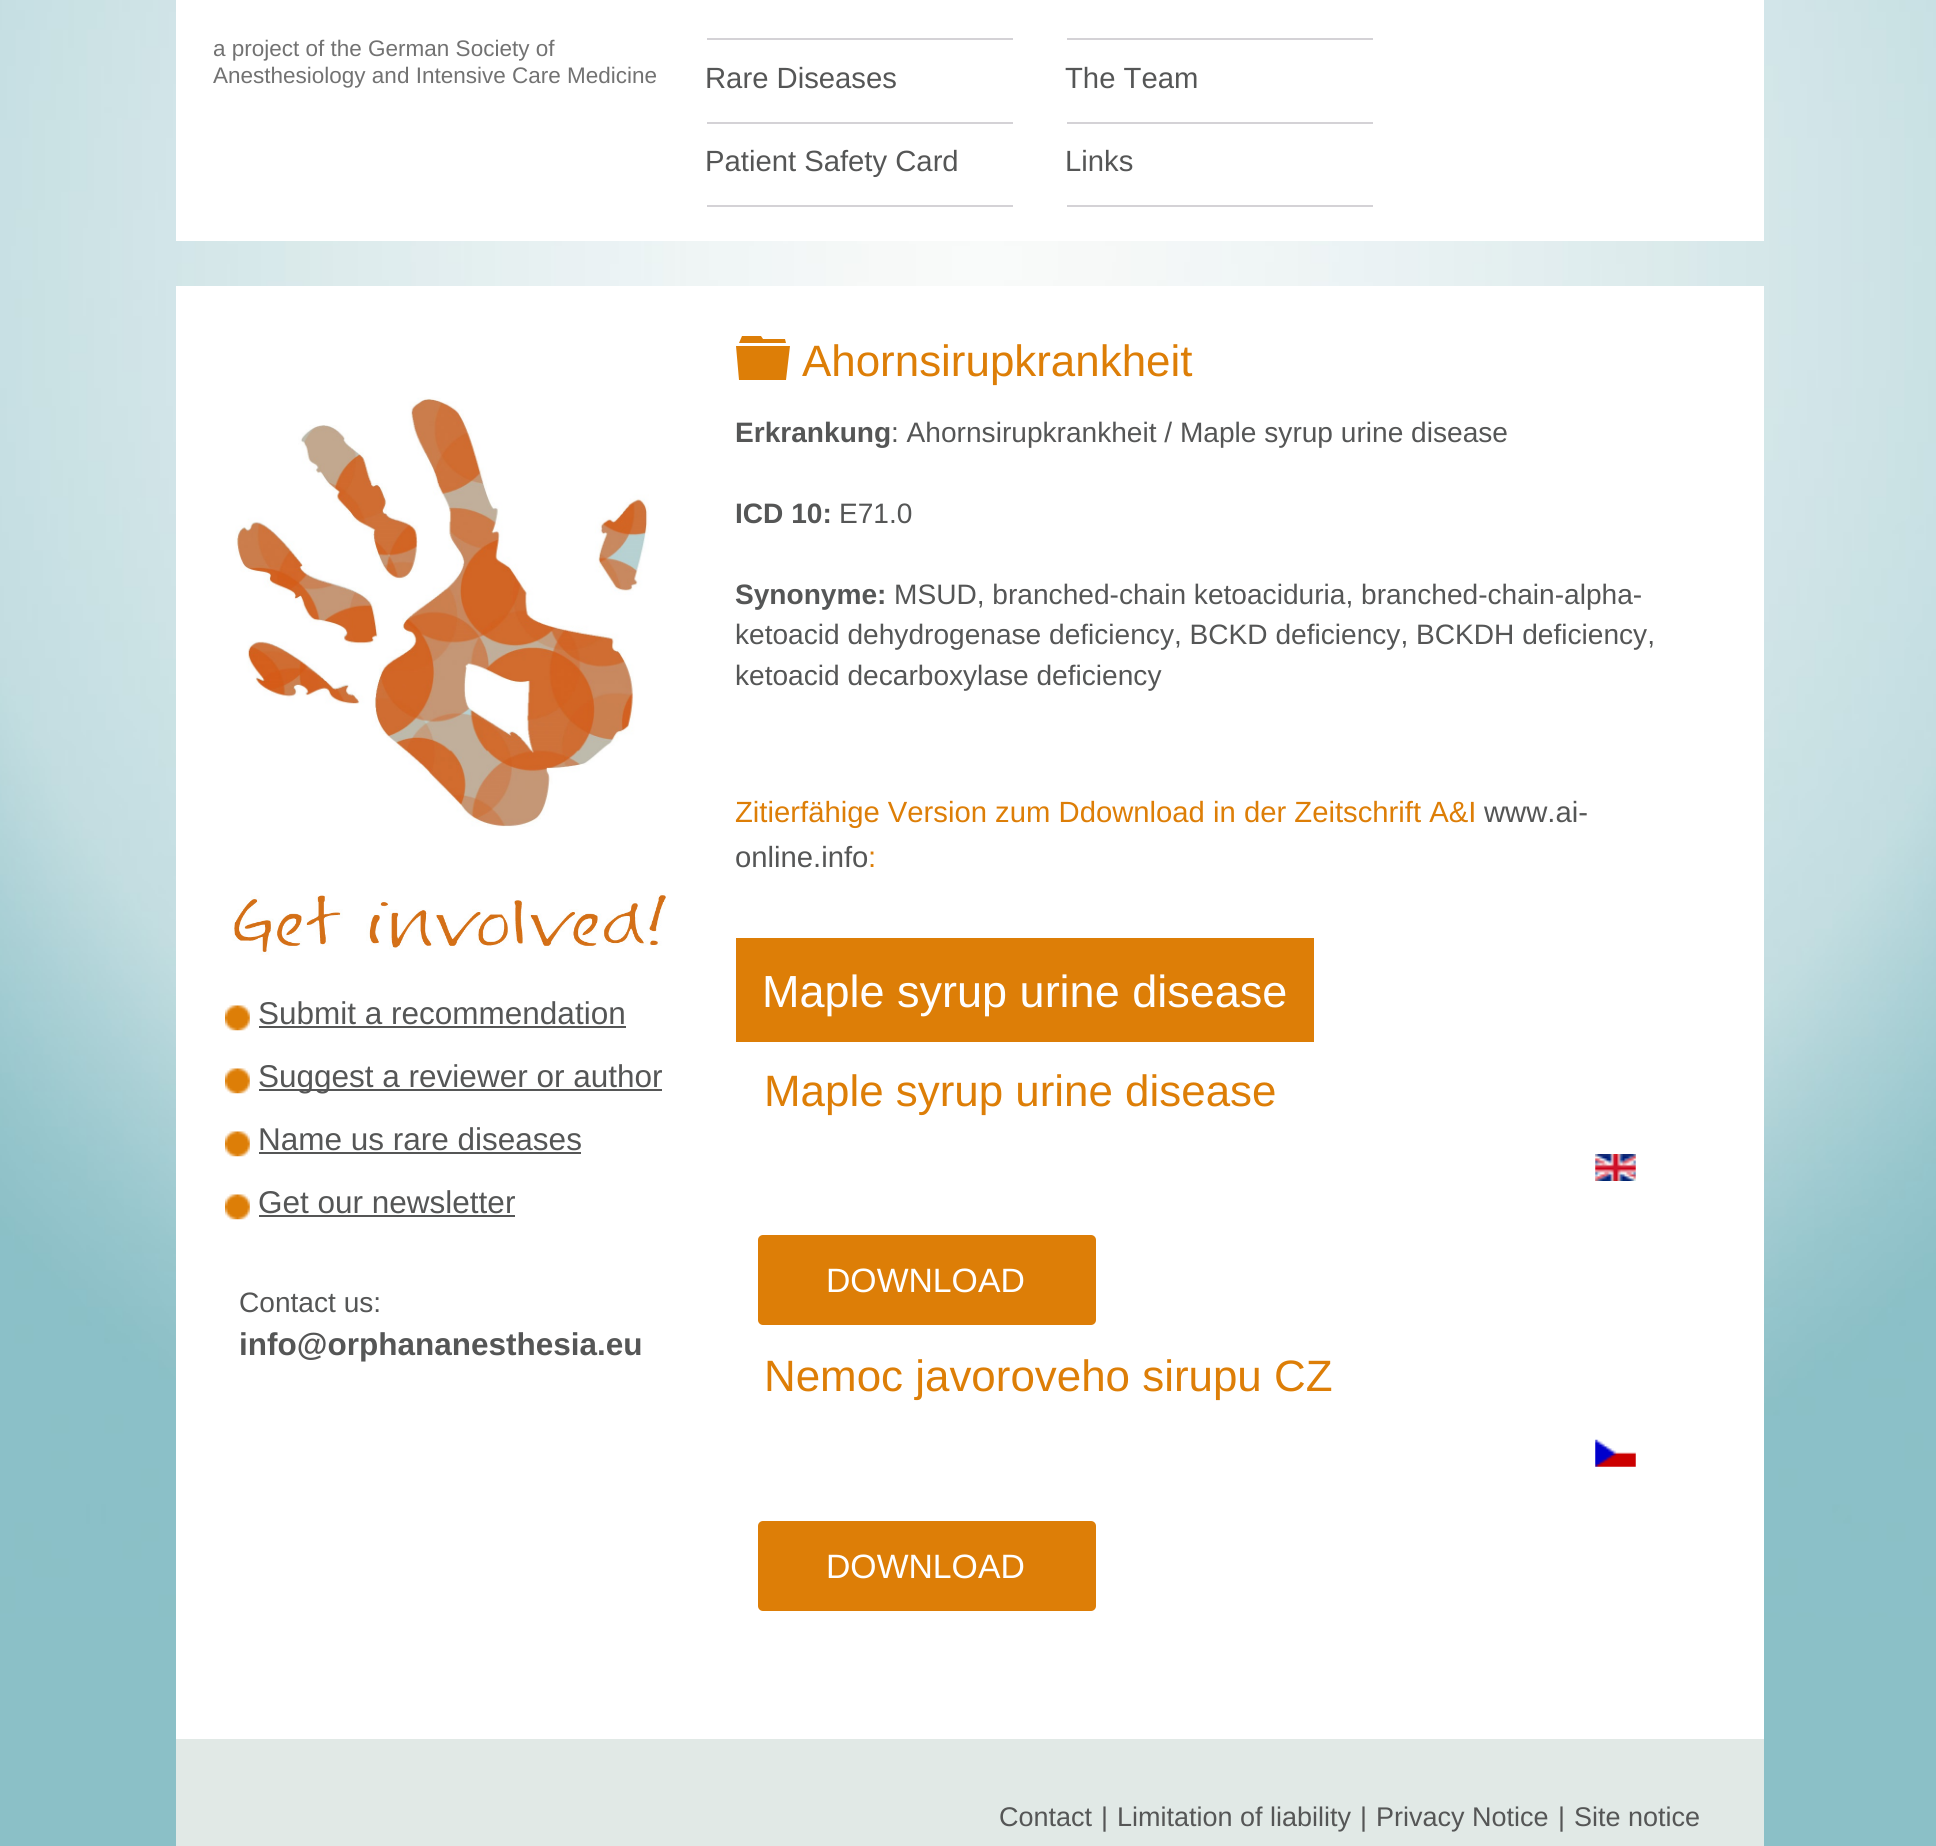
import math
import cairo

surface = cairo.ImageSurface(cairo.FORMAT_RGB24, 1936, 1846)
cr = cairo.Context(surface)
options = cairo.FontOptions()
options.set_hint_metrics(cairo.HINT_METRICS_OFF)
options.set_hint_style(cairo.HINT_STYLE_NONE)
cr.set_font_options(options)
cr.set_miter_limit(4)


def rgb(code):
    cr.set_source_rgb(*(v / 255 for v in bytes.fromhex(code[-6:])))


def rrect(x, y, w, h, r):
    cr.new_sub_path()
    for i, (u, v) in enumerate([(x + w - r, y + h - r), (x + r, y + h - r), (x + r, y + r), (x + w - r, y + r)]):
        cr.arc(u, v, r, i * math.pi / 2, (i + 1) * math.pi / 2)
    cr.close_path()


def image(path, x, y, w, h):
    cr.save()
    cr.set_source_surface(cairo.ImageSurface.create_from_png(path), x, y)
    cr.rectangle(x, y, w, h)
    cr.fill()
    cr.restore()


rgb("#8bc0c7")
cr.paint()
image("img/1.png", 0, 0, 1936, 1617)
for x, y, w, h, color in [
    (176, 0, 1588, 241, "#ffffff"),
    (707, 38, 306, 2, "#d4d2d6"),
    (1067, 38, 306, 2, "#d4d2d6"),
    (707, 122, 306, 2, "#d4d2d6"),
    (1067, 122, 306, 2, "#d4d2d6"),
    (707, 205, 306, 2, "#d4d2d6"),
    (1067, 205, 306, 2, "#d4d2d6"),
    (176, 286, 1588, 1453, "#ffffff"),
]:
    rgb(color)
    cr.rectangle(x, y, w, h)
    cr.fill()
image("img/2.png", 235, 397, 414, 430)
image("img/3.png", 232, 893, 434, 62)
image("img/4.png", 225, 1005, 25, 26)
rgb("#555656")
cr.rectangle(259, 1026, 367, 2)
cr.fill()
image("img/4.png", 225, 1068, 25, 26)
cr.rectangle(259, 1089, 403, 2)
cr.fill()
image("img/4.png", 225, 1131, 25, 26)
cr.rectangle(259, 1152, 322, 2)
cr.fill()
image("img/4.png", 225, 1194, 25, 26)
cr.rectangle(259, 1215, 256, 2)
cr.fill()
rgb("#dd7e07")
cr.new_path()
cr.move_to(736, 346)
cr.line_to(790, 346)
cr.line_to(786, 380)
cr.line_to(739, 380)
cr.close_path()
cr.move_to(785, 339)
cr.line_to(786, 343)
cr.line_to(739, 343)
cr.line_to(742, 336)
cr.line_to(761, 336)
cr.line_to(763, 339)
cr.close_path()
cr.fill()
cr.rectangle(736, 938, 578, 104)
cr.fill()
image("img/5.png", 1595, 1154, 41, 27)
rrect(758, 1235, 338, 90, 5)
cr.fill()
image("img/6.png", 1595, 1439, 41, 28)
rrect(758, 1521, 338, 90, 5)
cr.fill()
rgb("#e1e9e6")
cr.rectangle(176, 1739, 1588, 107)
cr.fill()
cr.select_font_face("Liberation Sans")
cr.set_font_size(22.5)
rgb("#727272")
cr.move_to(213, 56)
cr.show_text("a project of the German Society of")
cr.move_to(213, 83)
cr.show_text("Anesthesiology and Intensive Care Medicine")
cr.set_font_size(29.25)
rgb("#555656")
for x, y, s in [
    (705, 88, "Rare Diseases"),
    (1065, 88, "The Team"),
    (705, 171, "Patient Safety Card"),
    (1065, 171, "Links"),
]:
    cr.move_to(x, y)
    cr.show_text(s)
cr.set_font_size(31.5)
for x, y, s in [
    (258, 1024, "Submit a recommendation"),
    (258, 1087, "Suggest a reviewer or author"),
    (258, 1150, "Name us rare diseases"),
    (258, 1213, "Get our newsletter"),
]:
    cr.move_to(x, y)
    cr.show_text(s)
cr.set_font_size(28.1)
cr.move_to(239, 1312)
cr.show_text("Contact us:")
cr.select_font_face("Liberation Sans", cairo.FONT_SLANT_NORMAL, cairo.FONT_WEIGHT_BOLD)
cr.set_font_size(31.5)
cr.move_to(239, 1355)
cr.show_text("info@orphananesthesia.eu")
cr.select_font_face("Liberation Sans")
cr.set_font_size(43.9)
rgb("#dd7e07")
cr.move_to(802, 376)
cr.show_text("Ahornsirupkrankheit")
cr.select_font_face("Liberation Sans", cairo.FONT_SLANT_NORMAL, cairo.FONT_WEIGHT_BOLD)
cr.set_font_size(28.1)
rgb("#555656")
cr.move_to(735, 442)
cr.show_text("Erkrankung")
cr.select_font_face("Liberation Sans")
cr.move_to(891, 442)
cr.show_text(": Ahornsirupkrankheit / Maple syrup urine disease")
cr.select_font_face("Liberation Sans", cairo.FONT_SLANT_NORMAL, cairo.FONT_WEIGHT_BOLD)
cr.move_to(735, 523)
cr.show_text("ICD 10:")
cr.select_font_face("Liberation Sans")
cr.move_to(839, 523)
cr.show_text("E71.0")
cr.select_font_face("Liberation Sans", cairo.FONT_SLANT_NORMAL, cairo.FONT_WEIGHT_BOLD)
cr.move_to(735, 604)
cr.show_text("Synonyme:")
cr.select_font_face("Liberation Sans")
for x, y, s in [
    (894, 604, "MSUD, branched-chain ketoaciduria, branched-chain-alpha-"),
    (735, 644, "ketoacid dehydrogenase deficiency, BCKD deficiency, BCKDH deficiency,"),
    (735, 685, "ketoacid decarboxylase deficiency"),
]:
    cr.move_to(x, y)
    cr.show_text(s)
cr.set_font_size(29.25)
rgb("#dd7e07")
cr.move_to(735, 822)
cr.show_text("Zitierfähige Version zum Ddownload in der Zeitschrift A&I")
rgb("#555656")
cr.move_to(1484, 822)
cr.show_text("www.ai-")
cr.move_to(735, 867)
cr.show_text("online.info")
rgb("#dd7e07")
cr.move_to(868, 867)
cr.show_text(":")
cr.set_font_size(45)
rgb("#ffffff")
cr.move_to(762, 1007)
cr.show_text("Maple syrup urine disease")
cr.set_font_size(43.9)
rgb("#dd7e07")
cr.move_to(764, 1106)
cr.show_text("Maple syrup urine disease")
cr.set_font_size(33.75)
rgb("#ffffff")
cr.move_to(826, 1292)
cr.show_text("DOWNLOAD")
cr.set_font_size(43.9)
rgb("#dd7e07")
cr.move_to(764, 1391)
cr.show_text("Nemoc javoroveho sirupu CZ")
cr.set_font_size(33.75)
rgb("#ffffff")
cr.move_to(826, 1578)
cr.show_text("DOWNLOAD")
cr.set_font_size(27)
rgb("#555656")
for x, y, s in [
    (999, 1826, "Contact"),
    (1101, 1826, "|"),
    (1117, 1826, "Limitation of liability"),
    (1360, 1826, "|"),
    (1376, 1826, "Privacy Notice"),
    (1558, 1826, "|"),
    (1574, 1826, "Site notice"),
]:
    cr.move_to(x, y)
    cr.show_text(s)
surface.write_to_png("page.png")
